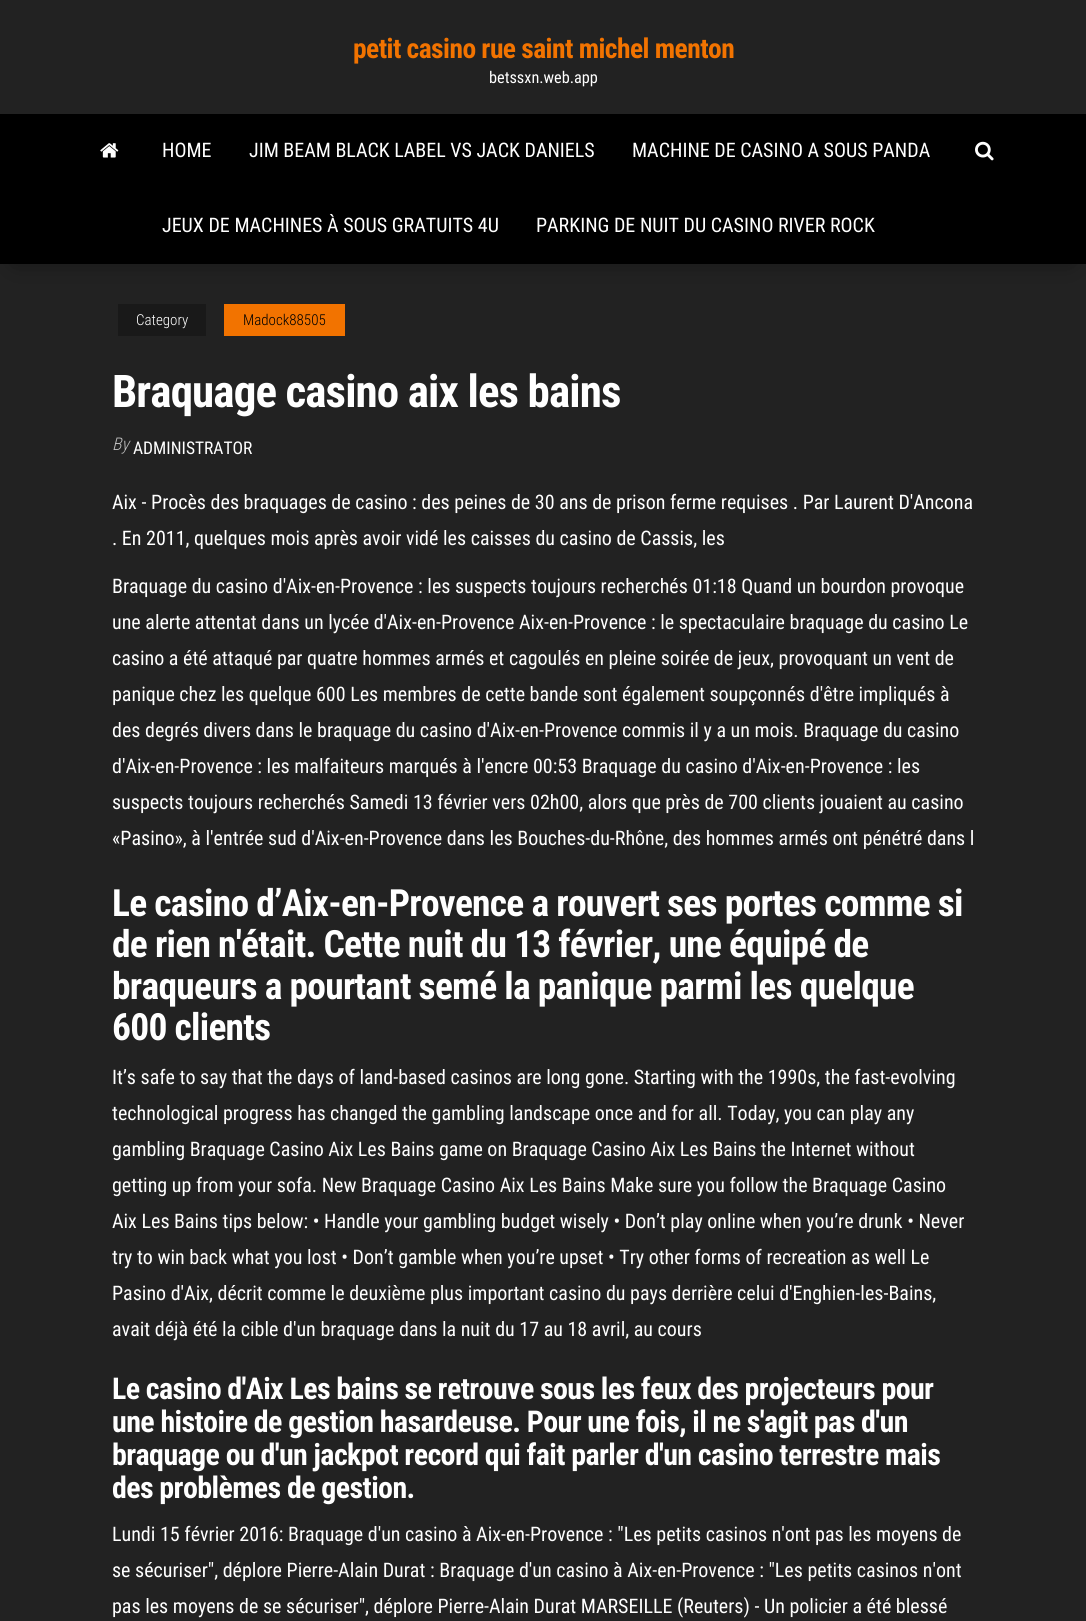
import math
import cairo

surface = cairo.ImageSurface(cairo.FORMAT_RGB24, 1086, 1621)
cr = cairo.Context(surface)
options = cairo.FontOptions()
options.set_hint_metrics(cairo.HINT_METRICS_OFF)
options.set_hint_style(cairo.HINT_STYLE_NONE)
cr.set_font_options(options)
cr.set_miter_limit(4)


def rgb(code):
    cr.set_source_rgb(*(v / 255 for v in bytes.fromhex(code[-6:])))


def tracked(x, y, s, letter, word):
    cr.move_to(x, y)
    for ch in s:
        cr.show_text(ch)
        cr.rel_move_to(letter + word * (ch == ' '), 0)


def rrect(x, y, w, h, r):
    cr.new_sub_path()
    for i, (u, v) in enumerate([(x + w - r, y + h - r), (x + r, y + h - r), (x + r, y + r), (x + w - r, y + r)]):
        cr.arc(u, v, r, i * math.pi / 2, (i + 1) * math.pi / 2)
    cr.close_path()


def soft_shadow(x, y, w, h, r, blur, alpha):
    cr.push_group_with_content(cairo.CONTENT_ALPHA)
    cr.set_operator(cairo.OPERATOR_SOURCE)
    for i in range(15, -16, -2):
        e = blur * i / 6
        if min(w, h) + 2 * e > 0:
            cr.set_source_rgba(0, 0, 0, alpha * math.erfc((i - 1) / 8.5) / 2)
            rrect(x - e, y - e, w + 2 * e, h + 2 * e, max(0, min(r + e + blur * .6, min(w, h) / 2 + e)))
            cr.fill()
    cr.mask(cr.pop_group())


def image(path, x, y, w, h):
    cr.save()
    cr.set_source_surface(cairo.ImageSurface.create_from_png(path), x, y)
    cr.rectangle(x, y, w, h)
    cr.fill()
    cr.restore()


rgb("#222222")
cr.paint()
rgb("#000000")
soft_shadow(15, 141, 1056, 120, 0, 12.5, 0.42)
rgb("#000000")
cr.rectangle(0, 114, 1086, 150)
cr.fill()
image("img/1.png", 100, 143, 19, 15)
image("img/2.png", 975, 141, 19, 20)
rgb("#191919")
cr.rectangle(118, 304, 88, 32)
cr.fill()
rgb("#f27300")
cr.rectangle(224, 304, 121, 32)
cr.fill()
cr.select_font_face("Roboto Condensed", cairo.FONT_SLANT_NORMAL, cairo.FONT_WEIGHT_BOLD)
cr.set_font_size(27.5)
tracked(353, 58, "petit casino rue saint michel menton", -0.55, 0)
cr.select_font_face("Roboto Condensed")
cr.set_font_size(16.25)
rgb("#ffffff")
cr.move_to(489, 83)
cr.show_text("betssxn.web.app")
cr.set_font_size(20)
for x, y, s in [
    (162, 157, "HOME"),
    (249, 157, "JIM BEAM BLACK LABEL VS JACK DANIELS"),
    (632, 157, "MACHINE DE CASINO A SOUS PANDA"),
    (162, 232, "JEUX DE MACHINES À SOUS GRATUITS 4U"),
    (536, 232, "PARKING DE NUIT DU CASINO RIVER ROCK"),
]:
    cr.move_to(x, y)
    cr.show_text(s)
cr.select_font_face("Roboto Condensed Light")
cr.set_font_size(15)
cr.move_to(136, 325)
cr.show_text("Category")
rgb("#000000")
cr.move_to(243, 325)
cr.show_text("Madock88505")
cr.select_font_face("Roboto Condensed", cairo.FONT_SLANT_NORMAL, cairo.FONT_WEIGHT_BOLD)
cr.set_font_size(45)
rgb("#ffffff")
tracked(112, 407, "Braquage casino aix les bains", -0.9, 0)
cr.select_font_face("Roboto Condensed Light", cairo.FONT_SLANT_ITALIC)
cr.set_font_size(17.5)
rgb("#bdbdbd")
cr.move_to(112, 450)
cr.show_text("By")
cr.select_font_face("Roboto Condensed")
rgb("#ffffff")
cr.move_to(133, 454)
cr.show_text("ADMINISTRATOR")
cr.set_font_size(20)
for x, y, s in [
    (112, 509, "Aix - Procès des braquages de casino : des peines de 30 ans de prison ferme requises . Par Laurent D'Ancona"),
    (112, 545, ". En 2011, quelques mois après avoir vidé les caisses du casino de Cassis, les"),
    (112, 593, "Braquage du casino d'Aix-en-Provence : les suspects toujours recherchés 01:18 Quand un bourdon provoque"),
    (112, 629, "une alerte attentat dans un lycée d'Aix-en-Provence Aix-en-Provence : le spectaculaire braquage du casino Le"),
    (112, 665, "casino a été attaqué par quatre hommes armés et cagoulés en pleine soirée de jeux, provoquant un vent de"),
    (112, 701, "panique chez les quelque 600 Les membres de cette bande sont également soupçonnés d'être impliqués à"),
    (112, 737, "des degrés divers dans le braquage du casino d'Aix-en-Provence commis il y a un mois. Braquage du casino"),
    (112, 773, "d'Aix-en-Provence : les malfaiteurs marqués à l'encre 00:53 Braquage du casino d'Aix-en-Provence : les"),
    (112, 809, "suspects toujours recherchés Samedi 13 février vers 02h00, alors que près de 700 clients jouaient au casino"),
    (112, 845, "«Pasino», à l'entrée sud d'Aix-en-Provence dans les Bouches-du-Rhône, des hommes armés ont pénétré dans l"),
]:
    cr.move_to(x, y)
    cr.show_text(s)
cr.select_font_face("Roboto Condensed", cairo.FONT_SLANT_NORMAL, cairo.FONT_WEIGHT_BOLD)
cr.set_font_size(37.5)
for x, y, s in [
    (112, 916, "Le casino d’Aix-en-Provence a rouvert ses portes comme si"),
    (112, 957, "de rien n'était. Cette nuit du 13 février, une équipé de"),
    (112, 999, "braqueurs a pourtant semé la panique parmi les quelque"),
    (112, 1040, "600 clients"),
]:
    tracked(x, y, s, -0.75, 0)
cr.select_font_face("Roboto Condensed")
cr.set_font_size(20)
for x, y, s in [
    (112, 1084, "It’s safe to say that the days of land-based casinos are long gone. Starting with the 1990s, the fast-evolving"),
    (112, 1120, "technological progress has changed the gambling landscape once and for all. Today, you can play any"),
    (112, 1156, "gambling Braquage Casino Aix Les Bains game on Braquage Casino Aix Les Bains the Internet without"),
    (112, 1192, "getting up from your sofa. New Braquage Casino Aix Les Bains Make sure you follow the Braquage Casino"),
    (112, 1228, "Aix Les Bains tips below: • Handle your gambling budget wisely • Don’t play online when you’re drunk • Never"),
    (112, 1264, "try to win back what you lost • Don’t gamble when you’re upset • Try other forms of recreation as well Le"),
    (112, 1300, "Pasino d'Aix, décrit comme le deuxième plus important casino du pays derrière celui d'Enghien-les-Bains,"),
    (112, 1336, "avait déjà été la cible d'un braquage dans la nuit du 17 au 18 avril, au cours"),
]:
    cr.move_to(x, y)
    cr.show_text(s)
cr.select_font_face("Roboto Condensed", cairo.FONT_SLANT_NORMAL, cairo.FONT_WEIGHT_BOLD)
cr.set_font_size(30)
for x, y, s in [
    (112, 1399, "Le casino d'Aix Les bains se retrouve sous les feux des projecteurs pour"),
    (112, 1432, "une histoire de gestion hasardeuse. Pour une fois, il ne s'agit pas d'un"),
    (112, 1465, "braquage ou d'un jackpot record qui fait parler d'un casino terrestre mais"),
    (112, 1498, "des problèmes de gestion."),
]:
    tracked(x, y, s, -0.6, 0)
cr.select_font_face("Roboto Condensed")
cr.set_font_size(20)
for x, y, s in [
    (112, 1541, "Lundi 15 février 2016: Braquage d'un casino à Aix-en-Provence : \"Les petits casinos n'ont pas les moyens de"),
    (112, 1577, "se sécuriser\", déplore Pierre-Alain Durat : Braquage d'un casino à Aix-en-Provence : \"Les petits casinos n'ont"),
    (112, 1613, "pas les moyens de se sécuriser\", déplore Pierre-Alain Durat MARSEILLE (Reuters) - Un policier a été blessé"),
]:
    cr.move_to(x, y)
    cr.show_text(s)
surface.write_to_png("page.png")
